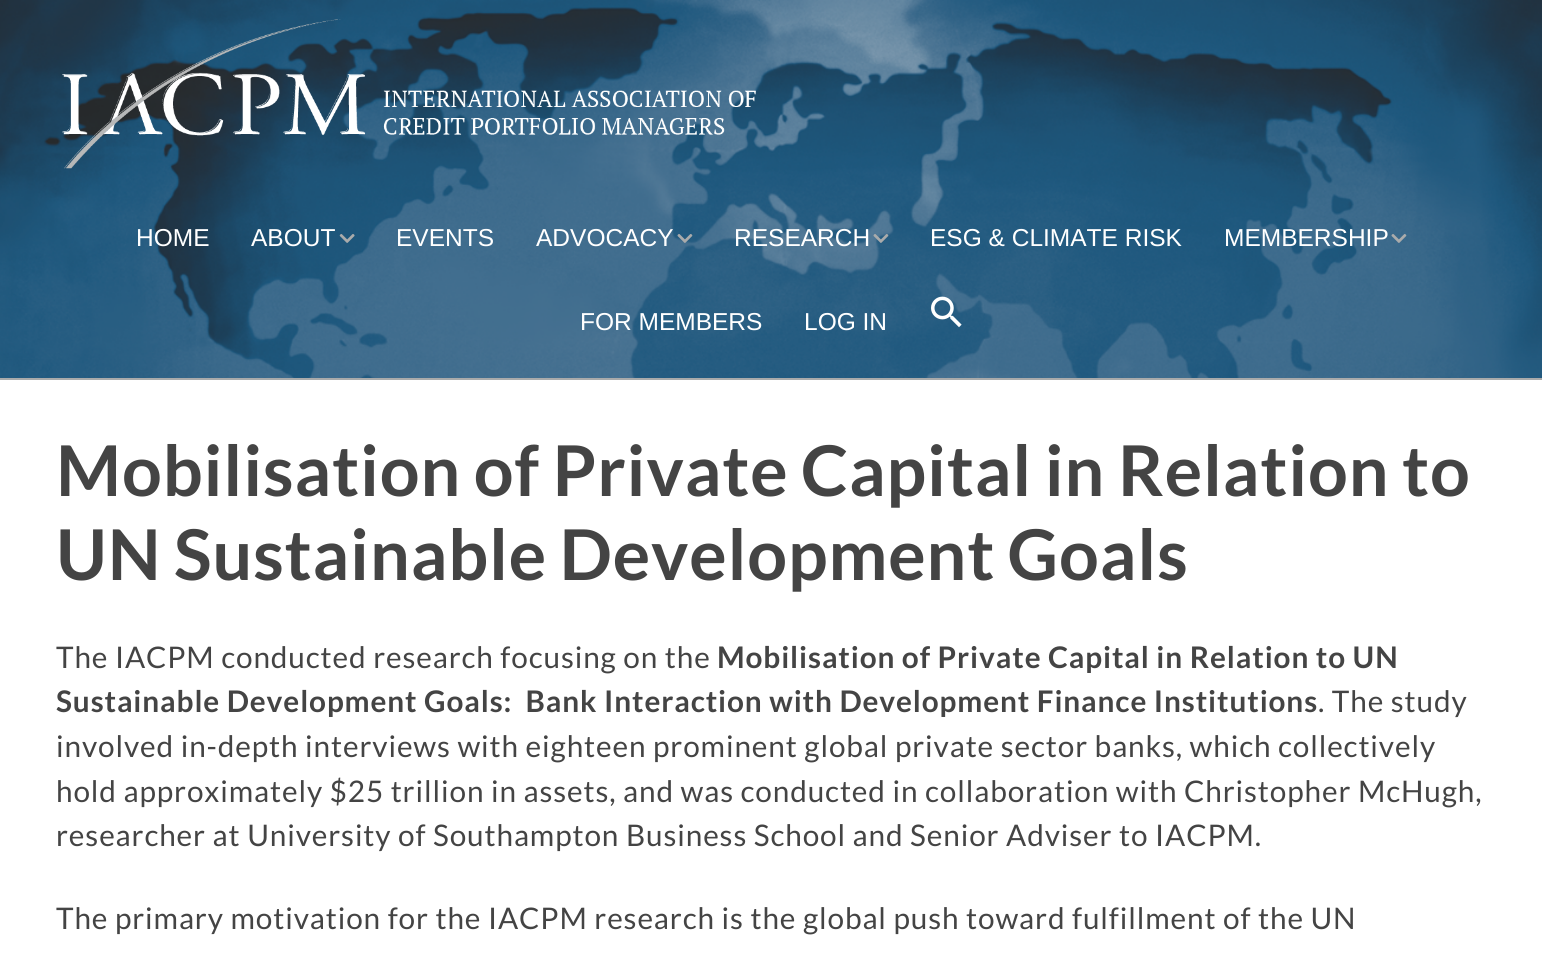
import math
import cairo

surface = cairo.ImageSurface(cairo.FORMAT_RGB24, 1542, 959)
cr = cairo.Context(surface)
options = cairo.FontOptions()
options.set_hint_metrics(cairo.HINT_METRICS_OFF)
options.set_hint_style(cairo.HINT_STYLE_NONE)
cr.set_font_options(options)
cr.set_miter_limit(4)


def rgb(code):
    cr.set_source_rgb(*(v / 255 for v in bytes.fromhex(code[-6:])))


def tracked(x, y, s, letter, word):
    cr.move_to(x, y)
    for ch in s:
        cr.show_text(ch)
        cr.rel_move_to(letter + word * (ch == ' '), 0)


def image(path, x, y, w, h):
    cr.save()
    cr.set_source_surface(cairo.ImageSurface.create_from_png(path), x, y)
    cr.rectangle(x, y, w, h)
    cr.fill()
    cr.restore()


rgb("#ffffff")
cr.paint()
image("img/1.png", 0, 0, 1542, 378)
rgb("#aaabab")
cr.rectangle(0, 378, 1542, 2)
cr.fill()
image("img/2.png", 62, 19, 694, 150)
image("img/3.png", 339, 234, 16, 9)
image("img/4.png", 677, 234, 16, 9)
image("img/5.png", 873, 234, 16, 9)
image("img/6.png", 1391, 234, 16, 9)
image("img/7.png", 931, 296, 31, 32)
cr.select_font_face("Liberation Sans")
cr.set_font_size(24.5)
rgb("#ffffff")
for x, y, s in [
    (136, 246, "HOME"),
    (251, 246, "ABOUT"),
    (396, 246, "EVENTS"),
    (536, 246, "ADVOCACY"),
    (734, 246, "RESEARCH"),
    (930, 246, "ESG & CLIMATE RISK"),
    (1224, 246, "MEMBERSHIP"),
    (580, 330, "FOR MEMBERS"),
    (804, 330, "LOG IN"),
]:
    cr.move_to(x, y)
    cr.show_text(s)
cr.select_font_face("Lato", cairo.FONT_SLANT_NORMAL, cairo.FONT_WEIGHT_BOLD)
cr.set_font_size(70)
rgb("#444444")
tracked(56, 496, "Mobilisation of Private Capital in Relation to", 0.88, -1.75)
tracked(56, 580, "UN Sustainable Development Goals", 0.88, -2)
cr.select_font_face("Lato")
cr.set_font_size(29.75)
tracked(56, 668, "The IACPM conducted research focusing on the", 0.88, 0)
cr.select_font_face("Lato", cairo.FONT_SLANT_NORMAL, cairo.FONT_WEIGHT_BOLD)
tracked(717, 668, "Mobilisation of Private Capital in Relation to UN", 0.88, 0)
tracked(56, 712, "Sustainable Development Goals:  Bank Interaction with Development Finance Institutions", 0.88, 0)
cr.select_font_face("Lato")
for x, y, s in [
    (1318, 712, ". The study"),
    (56, 757, "involved in-depth interviews with eighteen prominent global private sector banks, which collectively"),
    (56, 802, "hold approximately $25 trillion in assets, and was conducted in collaboration with Christopher McHugh,"),
    (56, 846, "researcher at University of Southampton Business School and Senior Adviser to IACPM."),
    (56, 929, "The primary motivation for the IACPM research is the global push toward fulfillment of the UN"),
]:
    tracked(x, y, s, 0.88, 0)
surface.write_to_png("page.png")
